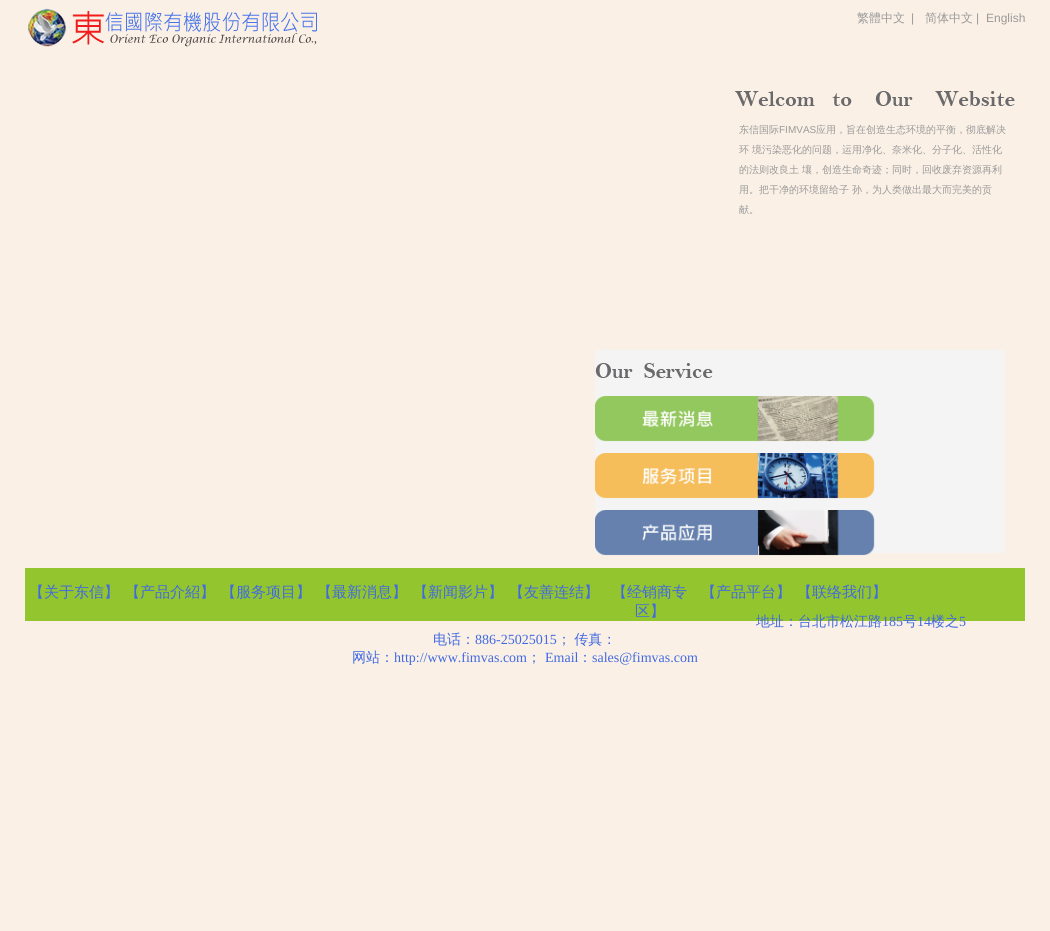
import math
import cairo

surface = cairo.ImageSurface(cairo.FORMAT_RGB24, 1050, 931)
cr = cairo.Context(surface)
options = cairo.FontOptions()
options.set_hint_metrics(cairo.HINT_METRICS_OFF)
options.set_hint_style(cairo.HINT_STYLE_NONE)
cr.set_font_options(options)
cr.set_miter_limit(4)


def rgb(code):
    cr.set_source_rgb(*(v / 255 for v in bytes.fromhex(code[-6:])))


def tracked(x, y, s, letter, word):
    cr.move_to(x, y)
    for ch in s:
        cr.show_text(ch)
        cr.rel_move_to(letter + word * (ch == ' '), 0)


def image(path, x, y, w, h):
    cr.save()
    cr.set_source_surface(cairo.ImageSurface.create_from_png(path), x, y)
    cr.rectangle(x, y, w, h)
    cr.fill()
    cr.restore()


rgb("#faf0e6")
cr.paint()
image("img/1.png", 28, 8, 289, 39)
image("img/2.png", 735, 91, 280, 15)
rgb("#f4f4f4")
cr.rectangle(595, 350, 410, 203)
cr.fill()
image("img/3.png", 595, 363, 118, 15)
image("img/4.png", 595, 396, 280, 46)
image("img/5.png", 595, 453, 280, 46)
image("img/6.png", 595, 510, 280, 46)
rgb("#92c52e")
cr.rectangle(25, 568, 1000, 53)
cr.fill()
cr.select_font_face("WenQuanYi Zen Hei Medium")
cr.set_font_size(12)
rgb("#999999")
cr.move_to(857, 22)
cr.show_text("繁體中文")
cr.select_font_face("Liberation Sans")
cr.move_to(911, 22)
cr.show_text("|")
cr.select_font_face("WenQuanYi Zen Hei Medium")
cr.move_to(925, 22)
cr.show_text("简体中文")
cr.select_font_face("Liberation Sans")
cr.move_to(976, 22)
cr.show_text("|")
cr.move_to(986, 22)
cr.show_text("English")
cr.select_font_face("WenQuanYi Zen Hei Medium")
cr.set_font_size(10)
cr.move_to(739, 133)
cr.show_text("东信国际")
cr.select_font_face("Liberation Sans")
cr.move_to(779, 133)
cr.show_text("FIMVAS")
cr.select_font_face("WenQuanYi Zen Hei Medium")
for x, y, s in [
    (816, 133, "应用，旨在创造生态环境的平衡，彻底解决"),
    (739, 153, "环 境污染恶化的问题，运用净化、奈米化、分子化、活性化"),
    (739, 173, "的法则改良土 壤，创造生命奇迹；同时，回收废弃资源再利"),
    (739, 193, "用。把干净的环境留给子 孙，为人类做出最大而完美的贡"),
    (739, 213, "献。"),
]:
    cr.move_to(x, y)
    cr.show_text(s)
cr.set_font_size(15)
rgb("#4169e1")
for x, y, s in [
    (29, 597, "【关于东信】"),
    (125, 597, "【产品介紹】"),
    (221, 597, "【服务项目】"),
    (317, 597, "【最新消息】"),
    (413, 597, "【新闻影片】"),
    (509, 597, "【友善连结】"),
    (612, 597, "【经销商专"),
    (635, 616, "区】"),
    (701, 597, "【产品平台】"),
    (797, 597, "【联络我们】"),
]:
    cr.move_to(x, y)
    cr.show_text(s)
cr.set_font_size(14)
cr.move_to(756, 626)
cr.show_text("地址：台北市松江路")
cr.select_font_face("Liberation Serif")
cr.move_to(882, 626)
cr.show_text("185")
cr.select_font_face("WenQuanYi Zen Hei Medium")
cr.move_to(903, 626)
cr.show_text("号")
cr.select_font_face("Liberation Serif")
cr.move_to(917, 626)
cr.show_text("14")
cr.select_font_face("WenQuanYi Zen Hei Medium")
cr.move_to(931, 626)
cr.show_text("楼之")
cr.select_font_face("Liberation Serif")
cr.move_to(959, 626)
cr.show_text("5")
cr.select_font_face("WenQuanYi Zen Hei Medium")
cr.move_to(433, 644)
cr.show_text("电话：")
cr.select_font_face("Liberation Serif")
cr.move_to(475, 644)
cr.show_text("886-25025015")
cr.select_font_face("WenQuanYi Zen Hei Medium")
tracked(557, 644, "； 传真：", 0, -1)
cr.move_to(352, 662)
cr.show_text("网站：")
cr.select_font_face("Liberation Serif")
cr.move_to(394, 662)
cr.show_text("http://www.fimvas.com")
cr.select_font_face("WenQuanYi Zen Hei Medium")
cr.move_to(527, 662)
cr.show_text("；")
cr.select_font_face("Liberation Serif")
cr.move_to(545, 662)
cr.show_text("Email")
cr.select_font_face("WenQuanYi Zen Hei Medium")
cr.move_to(578, 662)
cr.show_text("：")
cr.select_font_face("Liberation Serif")
cr.move_to(592, 662)
cr.show_text("sales@fimvas.com")
surface.write_to_png("page.png")
